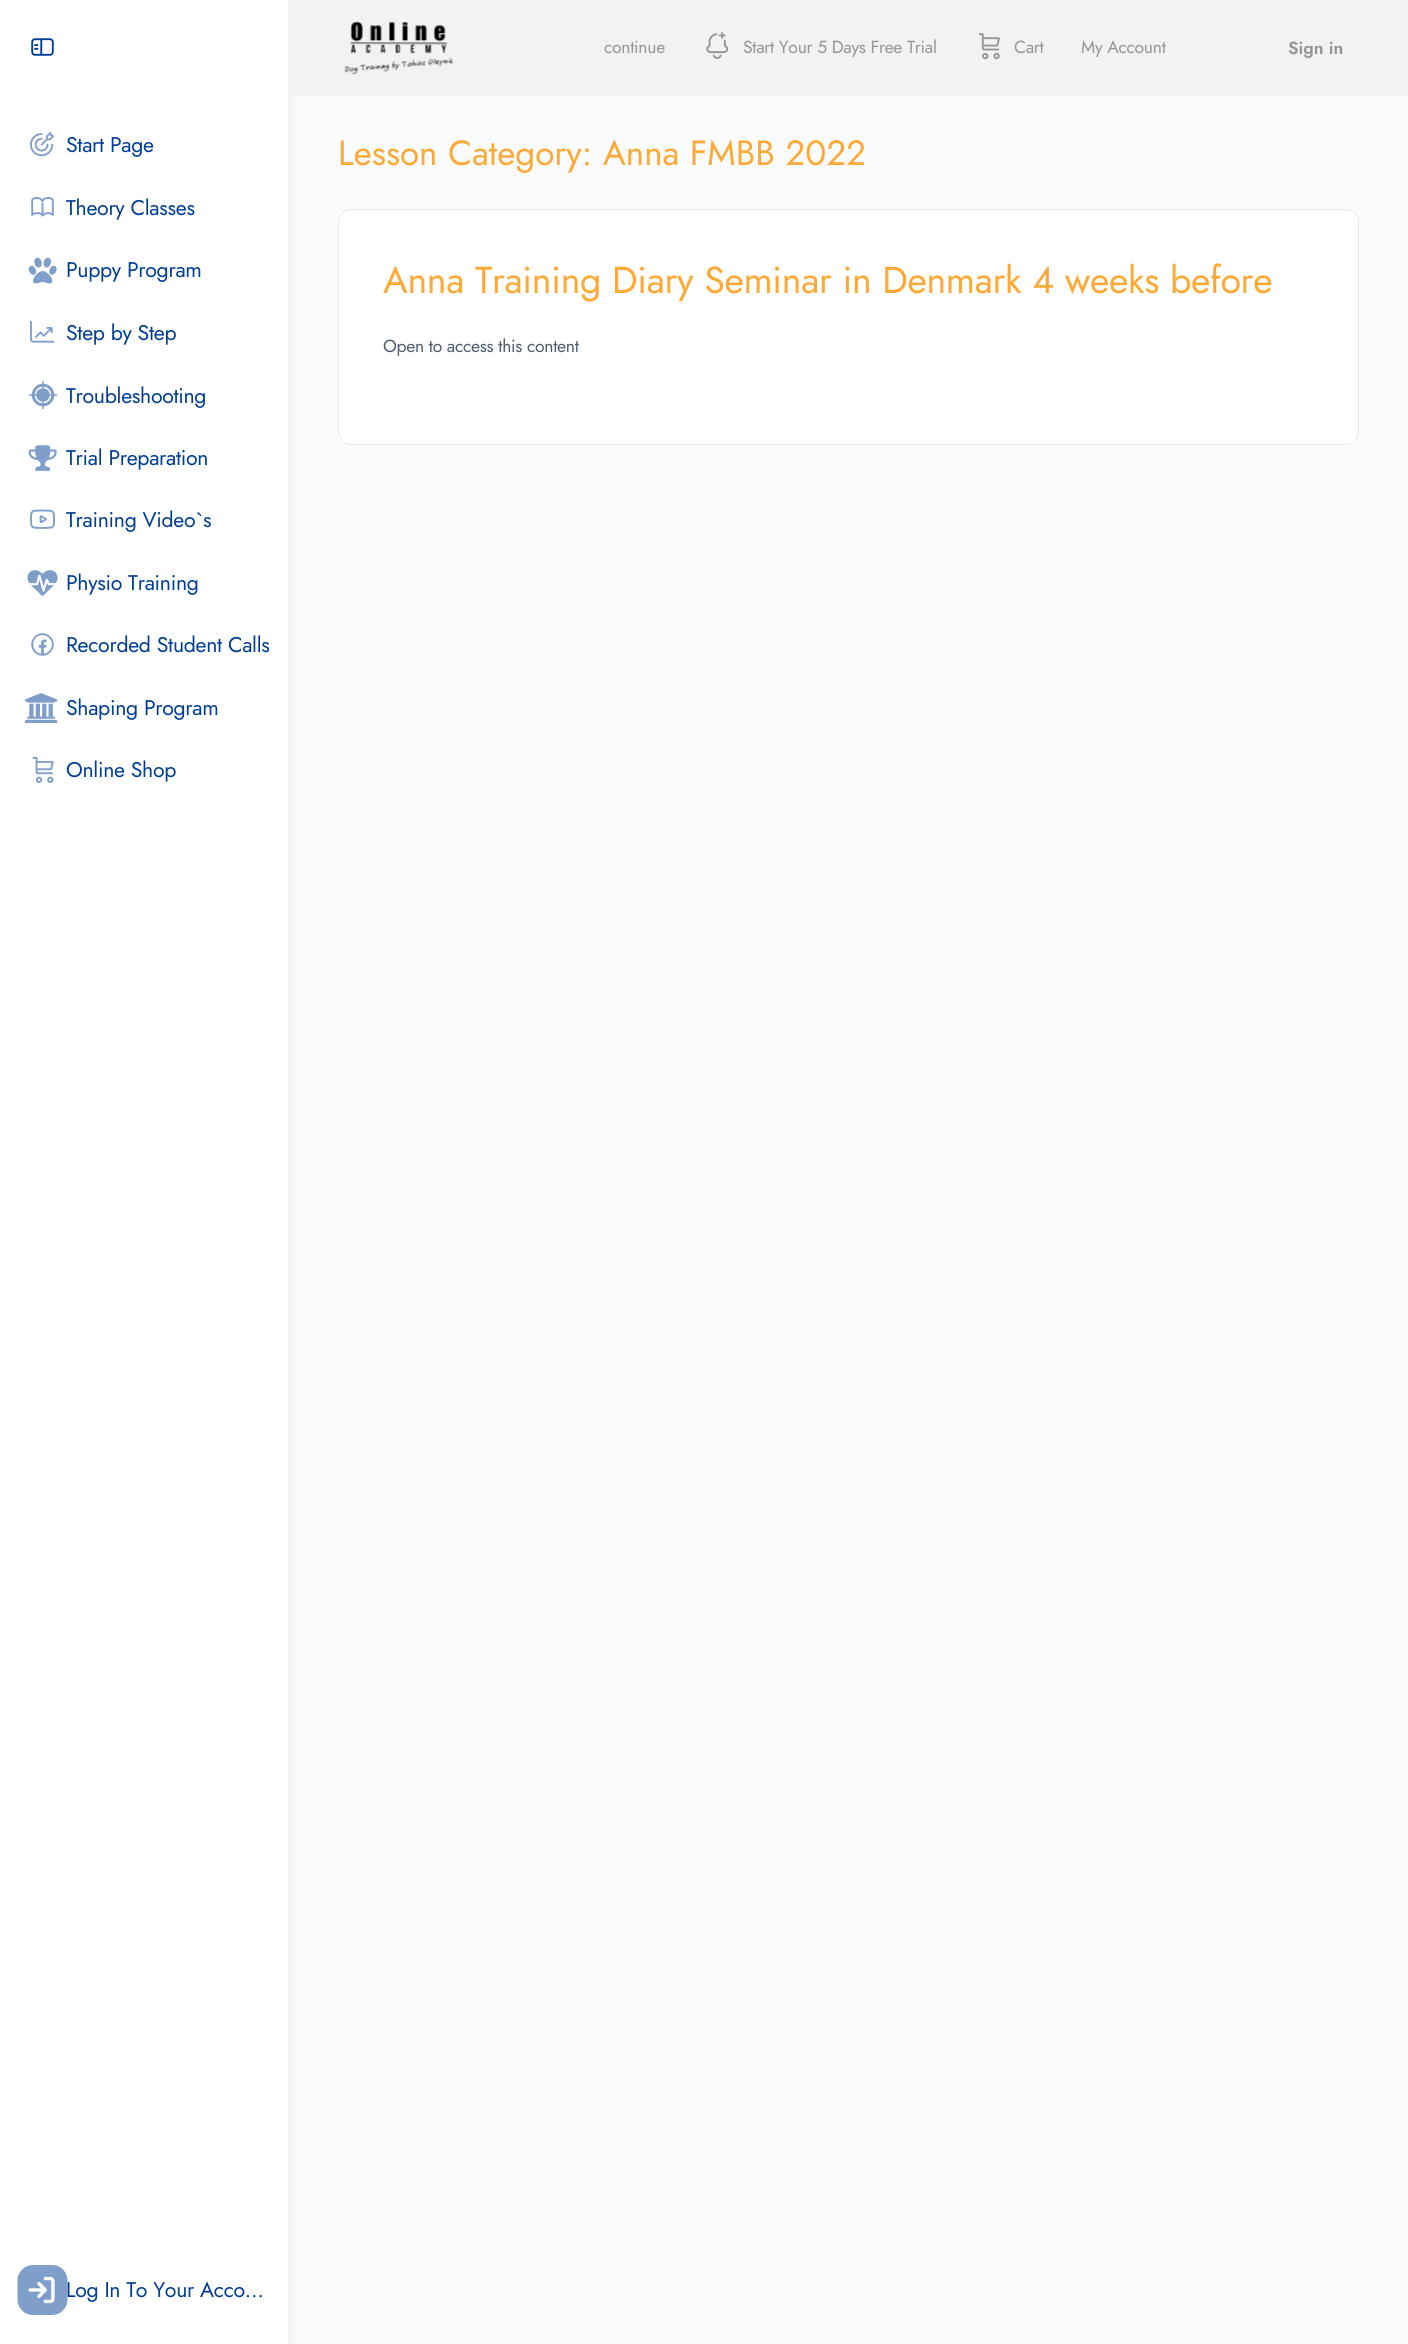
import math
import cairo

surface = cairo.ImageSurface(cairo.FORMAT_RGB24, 1408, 2344)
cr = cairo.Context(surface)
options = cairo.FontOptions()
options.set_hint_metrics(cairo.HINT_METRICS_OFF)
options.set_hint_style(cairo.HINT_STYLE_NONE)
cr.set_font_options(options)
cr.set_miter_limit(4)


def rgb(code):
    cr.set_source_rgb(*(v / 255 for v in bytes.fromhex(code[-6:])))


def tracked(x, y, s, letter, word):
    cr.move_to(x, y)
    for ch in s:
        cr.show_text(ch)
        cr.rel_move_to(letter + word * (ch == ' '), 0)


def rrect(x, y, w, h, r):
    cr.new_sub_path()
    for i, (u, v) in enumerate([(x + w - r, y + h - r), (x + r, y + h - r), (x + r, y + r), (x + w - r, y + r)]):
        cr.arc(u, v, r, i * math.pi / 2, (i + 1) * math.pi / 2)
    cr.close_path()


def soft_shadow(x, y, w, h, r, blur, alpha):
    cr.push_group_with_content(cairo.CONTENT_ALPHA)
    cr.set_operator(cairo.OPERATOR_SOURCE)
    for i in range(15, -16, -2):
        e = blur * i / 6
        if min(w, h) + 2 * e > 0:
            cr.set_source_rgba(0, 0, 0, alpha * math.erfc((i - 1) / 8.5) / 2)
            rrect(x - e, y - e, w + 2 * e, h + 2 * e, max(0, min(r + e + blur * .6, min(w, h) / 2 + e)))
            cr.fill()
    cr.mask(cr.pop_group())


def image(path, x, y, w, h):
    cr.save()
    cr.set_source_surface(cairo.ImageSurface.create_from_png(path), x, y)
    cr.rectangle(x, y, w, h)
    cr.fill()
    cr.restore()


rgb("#fafbfd")
cr.paint()
rgb("#122b46")
soft_shadow(0, 4, 288, 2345, 0, 8, 0.1)
rgb("#ffffff")
cr.rectangle(0, 0, 288, 2344)
cr.fill()
image("img/1.png", 31, 38, 23, 18)
image("img/2.png", 30, 132, 25, 25)
image("img/3.png", 31, 197, 23, 20)
image("img/4.png", 28, 257, 29, 27)
image("img/5.png", 30, 320, 25, 23)
image("img/6.png", 28, 380, 30, 30)
image("img/7.png", 28, 445, 29, 26)
image("img/8.png", 30, 509, 25, 20)
image("img/9.png", 27, 570, 31, 26)
image("img/10.png", 31, 633, 23, 23)
image("img/11.png", 25, 693, 33, 31)
image("img/12.png", 32, 757, 22, 26)
cr.set_source_rgba(0.545, 0.553, 0.616, 0.05)
cr.new_path()
cr.move_to(288, 95)
cr.line_to(288, 96)
cr.line_to(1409, 96)
cr.line_to(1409, 1)
cr.line_to(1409, 95)
cr.close_path()
cr.fill()
rgb("#f2f2f2")
cr.rectangle(288, 0, 1120, 95)
cr.fill()
image("img/14.png", 344, 21, 110, 54)
image("img/15.png", 706, 32, 23, 27)
image("img/16.png", 978, 33, 22, 27)
rgb("#ffffff")
rrect(338.5, 209.5, 1020, 235, 12.5)
cr.fill_preserve()
rgb("#e7e9ec")
cr.set_line_width(1)
cr.stroke()
cr.select_font_face("Jost")
cr.set_font_size(21.25)
rgb("#003e96")
for x, y, s in [
    (66, 152, "Start Page"),
    (66, 215, "Theory Classes"),
    (66, 277, "Puppy Program"),
    (66, 340, "Step by Step"),
    (66, 403, "Troubleshooting"),
    (66, 465, "Trial Preparation"),
    (66, 527, "Training Video`s"),
    (66, 590, "Physio Training"),
    (66, 652, "Recorded Student Calls"),
    (66, 715, "Shaping Program"),
    (66, 777, "Online Shop"),
    (66, 2297, "Log In To Your Acco…"),
]:
    tracked(x, y, s, -0.3, 0)
image("img/13.png", 17, 2265, 51, 50)
cr.set_font_size(17.5)
rgb("#939597")
for x, y, s in [
    (604, 53, "continue"),
    (743, 53, "Start Your 5 Days Free Trial"),
    (1014, 53, "Cart"),
    (1081, 53, "My Account"),
]:
    tracked(x, y, s, -0.3, 0)
cr.select_font_face("Jost SemiBold")
cr.move_to(1288, 54)
cr.show_text("Sign in")
cr.select_font_face("Jost")
cr.set_font_size(35)
rgb("#fda936")
cr.move_to(338, 165)
cr.show_text("Lesson Category: Anna FMBB 2022")
cr.set_font_size(37.5)
tracked(383, 293, "Anna Training Diary Seminar in Denmark 4 weeks before", -0.3, 0)
cr.set_font_size(17.5)
rgb("#4d5c6d")
tracked(383, 352, "Open to access this content", -0.3, 0)
surface.write_to_png("page.png")
